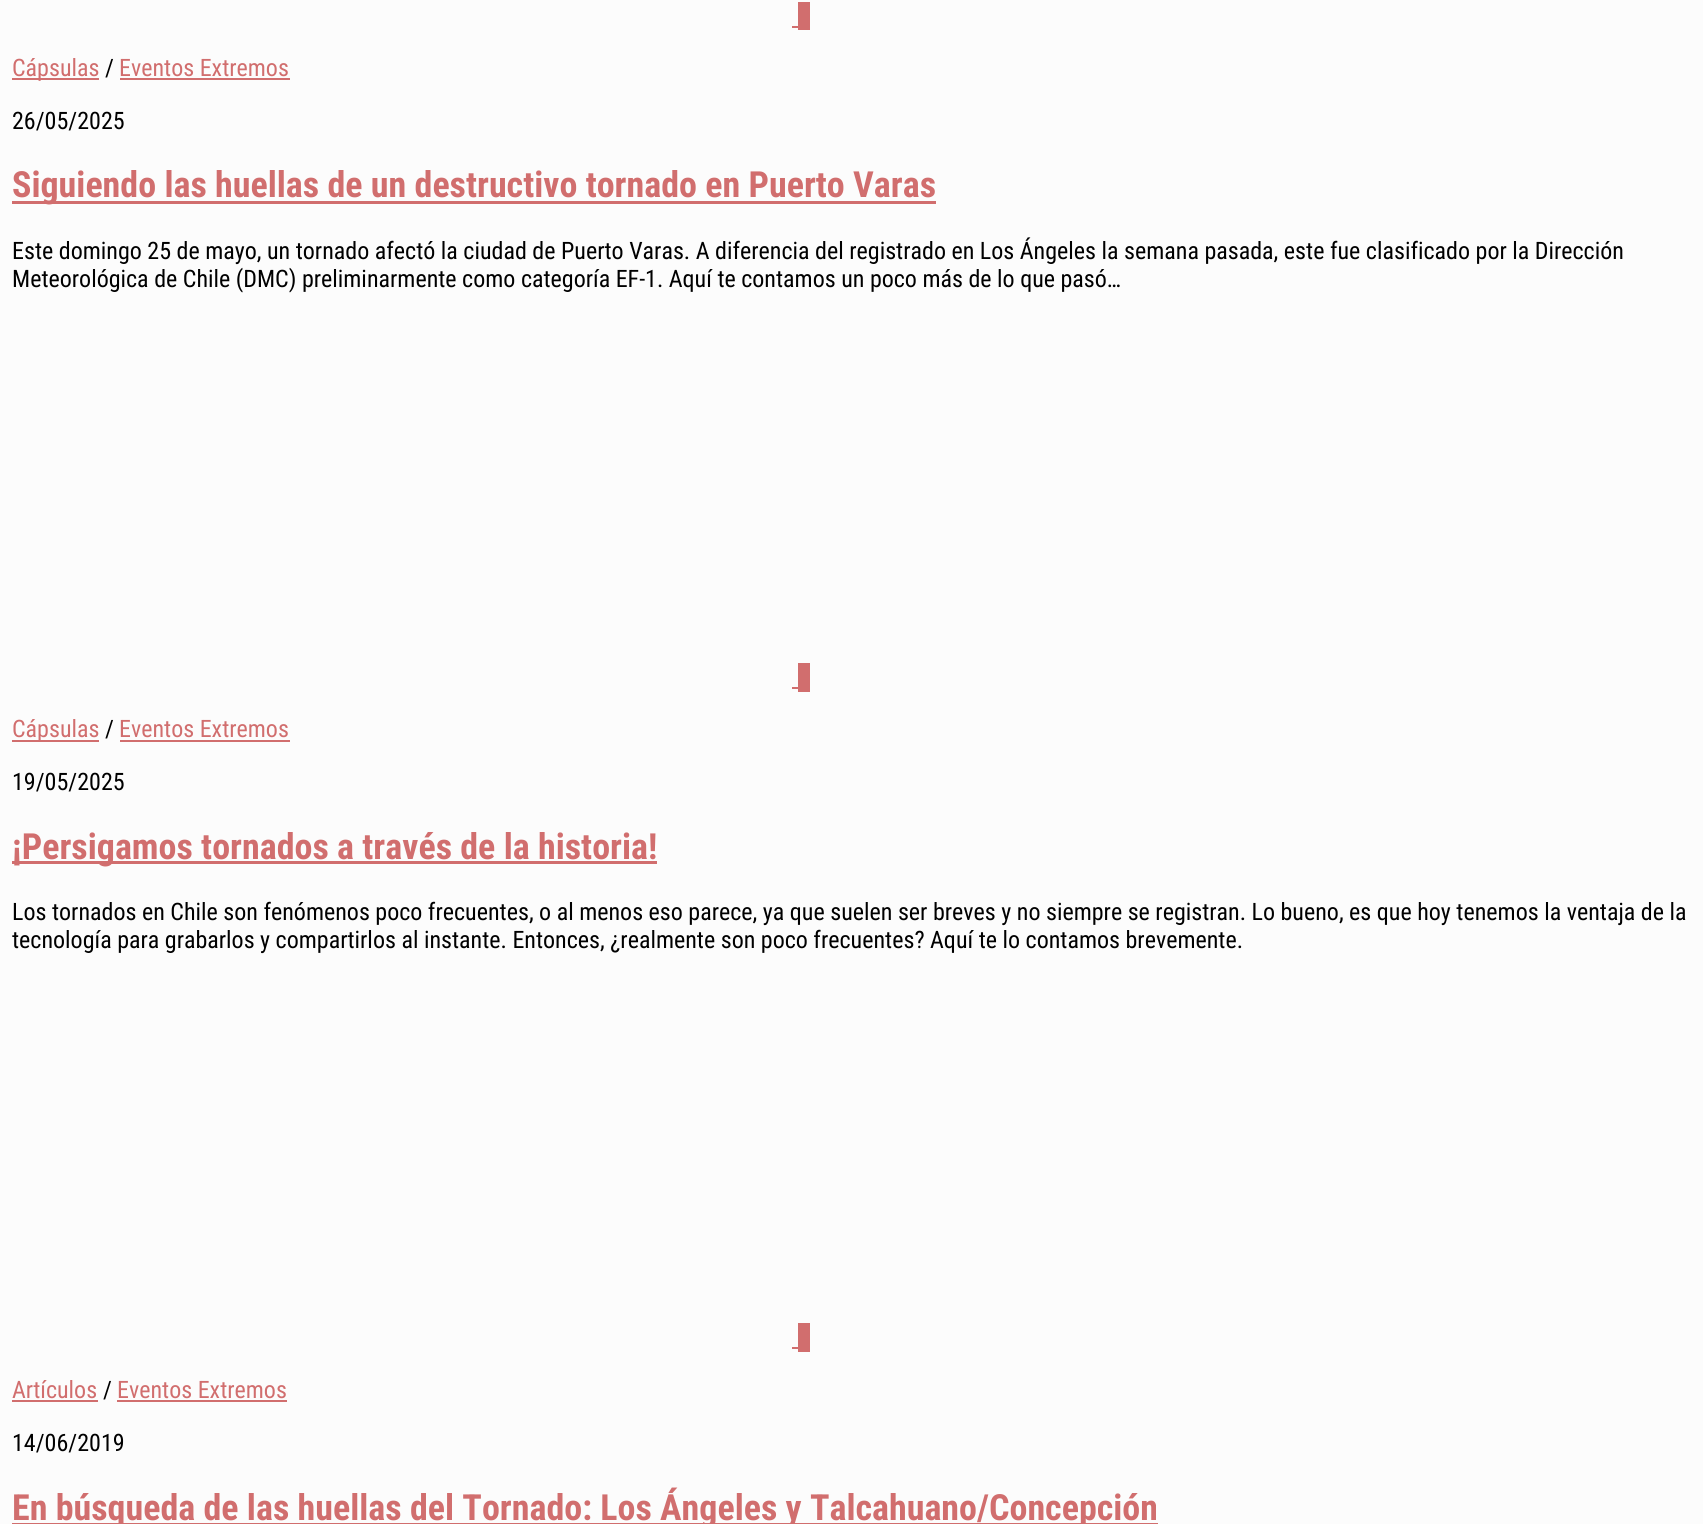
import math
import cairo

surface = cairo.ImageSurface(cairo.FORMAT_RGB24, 1703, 1524)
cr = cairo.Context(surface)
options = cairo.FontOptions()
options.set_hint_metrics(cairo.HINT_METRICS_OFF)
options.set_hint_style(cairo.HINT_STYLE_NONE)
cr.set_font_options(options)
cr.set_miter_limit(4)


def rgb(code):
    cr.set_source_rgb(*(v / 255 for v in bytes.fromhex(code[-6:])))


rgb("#fcfcfc")
cr.paint()
for x, y, w, h, color in [
    (792, 26, 6, 2, "#d16e6e"),
    (798, 2, 12, 28, "#d16e6e"),
    (12, 78, 87, 2, "#d16e6e"),
    (120, 78, 170, 2, "#d16e6e"),
    (12, 201, 924, 3, "#d16e6e"),
    (792, 687, 6, 2, "#d16e6e"),
    (798, 663, 12, 29, "#d16e6e"),
    (12, 740, 87, 2, "#d16e6e"),
    (120, 740, 170, 2, "#d16e6e"),
    (12, 861, 645, 3, "#d16e6e"),
    (792, 1347, 6, 2, "#d16e6e"),
    (798, 1323, 12, 29, "#d16e6e"),
    (12, 1400, 86, 2, "#d16e6e"),
    (117, 1400, 170, 2, "#d16e6e"),
    (12, 1523, 1146, 1, "#d16e6e"),
]:
    rgb(color)
    cr.rectangle(x, y, w, h)
    cr.fill()
cr.select_font_face("Roboto Condensed")
cr.set_font_size(24)
cr.move_to(12, 76)
cr.show_text("Cápsulas")
rgb("#000000")
cr.move_to(105, 76)
cr.show_text("/")
rgb("#d16e6e")
cr.move_to(119, 76)
cr.show_text("Eventos Extremos")
rgb("#000000")
cr.move_to(12, 129)
cr.show_text("26/05/2025")
cr.select_font_face("Roboto Condensed", cairo.FONT_SLANT_NORMAL, cairo.FONT_WEIGHT_BOLD)
cr.set_font_size(36)
rgb("#d16e6e")
cr.move_to(12, 197)
cr.show_text("Siguiendo las huellas de un destructivo tornado en Puerto Varas")
cr.select_font_face("Roboto Condensed")
cr.set_font_size(24)
rgb("#000000")
cr.move_to(12, 259)
cr.show_text("Este domingo 25 de mayo, un tornado afectó la ciudad de Puerto Varas. A diferencia del registrado en Los Ángeles la semana pasada, este fue clasificado por la Dirección")
cr.move_to(12, 287)
cr.show_text("Meteorológica de Chile (DMC) preliminarmente como categoría EF-1. Aquí te contamos un poco más de lo que pasó…")
rgb("#d16e6e")
cr.move_to(12, 737)
cr.show_text("Cápsulas")
rgb("#000000")
cr.move_to(105, 737)
cr.show_text("/")
rgb("#d16e6e")
cr.move_to(119, 737)
cr.show_text("Eventos Extremos")
rgb("#000000")
cr.move_to(12, 790)
cr.show_text("19/05/2025")
cr.select_font_face("Roboto Condensed", cairo.FONT_SLANT_NORMAL, cairo.FONT_WEIGHT_BOLD)
cr.set_font_size(36)
rgb("#d16e6e")
cr.move_to(12, 859)
cr.show_text("¡Persigamos tornados a través de la historia!")
cr.select_font_face("Roboto Condensed")
cr.set_font_size(24)
rgb("#000000")
cr.move_to(12, 920)
cr.show_text("Los tornados en Chile son fenómenos poco frecuentes, o al menos eso parece, ya que suelen ser breves y no siempre se registran. Lo bueno, es que hoy tenemos la ventaja de la")
cr.move_to(12, 948)
cr.show_text("tecnología para grabarlos y compartirlos al instante. Entonces, ¿realmente son poco frecuentes? Aquí te lo contamos brevemente.")
rgb("#d16e6e")
cr.move_to(12, 1398)
cr.show_text("Artículos")
rgb("#000000")
cr.move_to(103, 1398)
cr.show_text("/")
rgb("#d16e6e")
cr.move_to(117, 1398)
cr.show_text("Eventos Extremos")
rgb("#000000")
cr.move_to(12, 1451)
cr.show_text("14/06/2019")
cr.select_font_face("Roboto Condensed", cairo.FONT_SLANT_NORMAL, cairo.FONT_WEIGHT_BOLD)
cr.set_font_size(36)
rgb("#d16e6e")
cr.move_to(12, 1520)
cr.show_text("En búsqueda de las huellas del Tornado: Los Ángeles y Talcahuano/Concepción")
surface.write_to_png("page.png")
